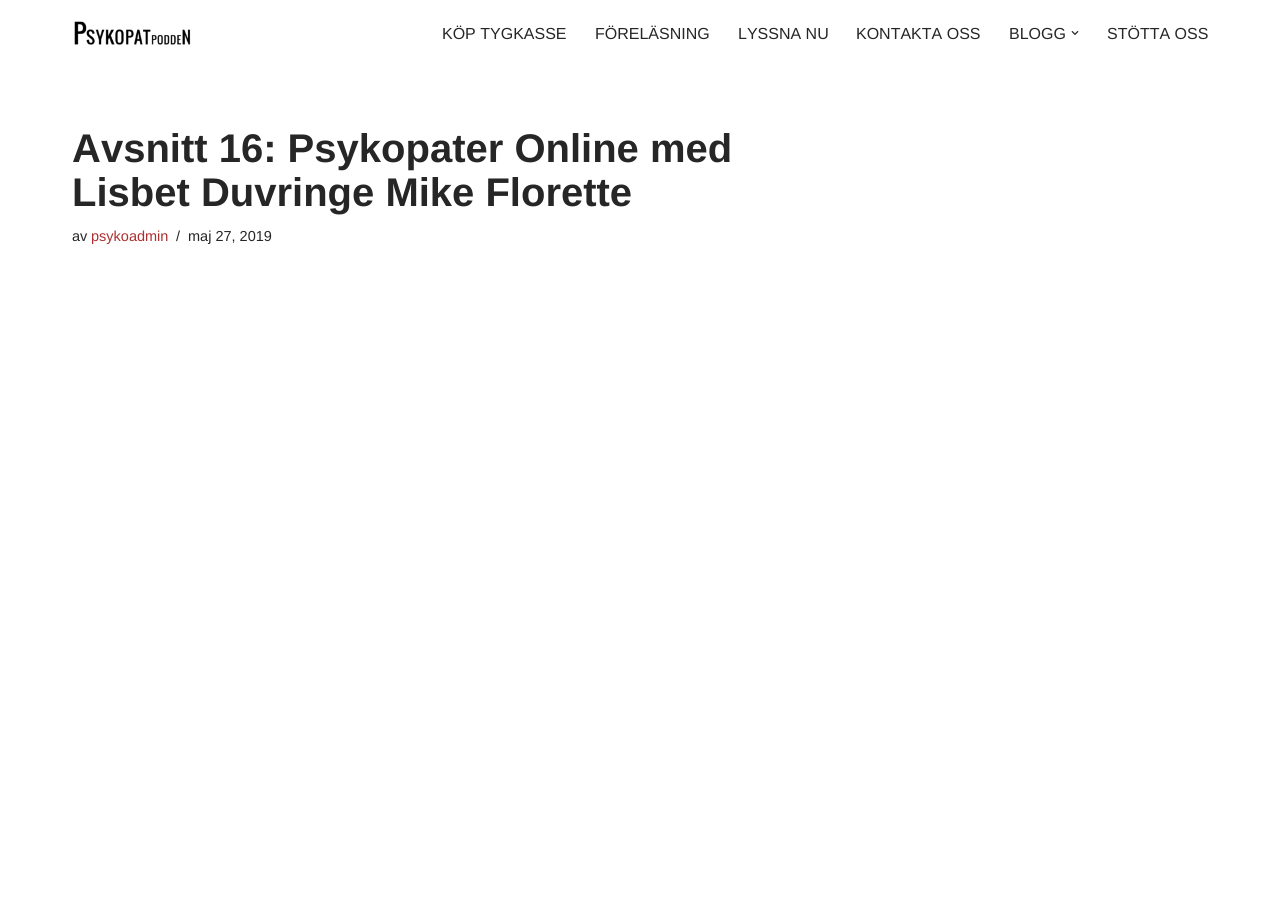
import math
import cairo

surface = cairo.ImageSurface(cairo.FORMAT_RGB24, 1284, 900)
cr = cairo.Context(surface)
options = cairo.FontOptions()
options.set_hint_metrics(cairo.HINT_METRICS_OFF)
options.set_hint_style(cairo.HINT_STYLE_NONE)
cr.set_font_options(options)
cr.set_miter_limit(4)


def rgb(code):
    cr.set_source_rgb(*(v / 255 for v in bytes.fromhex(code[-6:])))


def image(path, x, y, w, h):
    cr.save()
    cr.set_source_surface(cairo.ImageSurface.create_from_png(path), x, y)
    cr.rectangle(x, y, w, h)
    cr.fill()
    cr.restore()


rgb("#ffffff")
cr.paint()
image("img/1.png", 74, 21, 117, 24)
image("img/2.png", 1071, 31, 8, 4)
cr.select_font_face("Liberation Sans")
cr.set_font_size(16)
rgb("#272626")
for x, y, s in [
    (442, 39, "KÖP TYGKASSE"),
    (595, 39, "FÖRELÄSNING"),
    (738, 39, "LYSSNA NU"),
    (856, 39, "KONTAKTA OSS"),
    (1009, 39, "BLOGG"),
    (1107, 39, "STÖTTA OSS"),
]:
    cr.move_to(x, y)
    cr.show_text(s)
cr.select_font_face("Liberation Sans", cairo.FONT_SLANT_NORMAL, cairo.FONT_WEIGHT_BOLD)
cr.set_font_size(40)
cr.move_to(72, 162)
cr.show_text("Avsnitt 16: Psykopater Online med")
cr.move_to(72, 206)
cr.show_text("Lisbet Duvringe Mike Florette")
cr.select_font_face("Liberation Sans")
cr.set_font_size(14.5)
cr.move_to(72, 241)
cr.show_text("av")
rgb("#ad2f2f")
cr.move_to(91, 241)
cr.show_text("psykoadmin")
rgb("#272626")
cr.move_to(176, 241)
cr.show_text("/")
cr.move_to(188, 241)
cr.show_text("maj 27, 2019")
surface.write_to_png("page.png")
